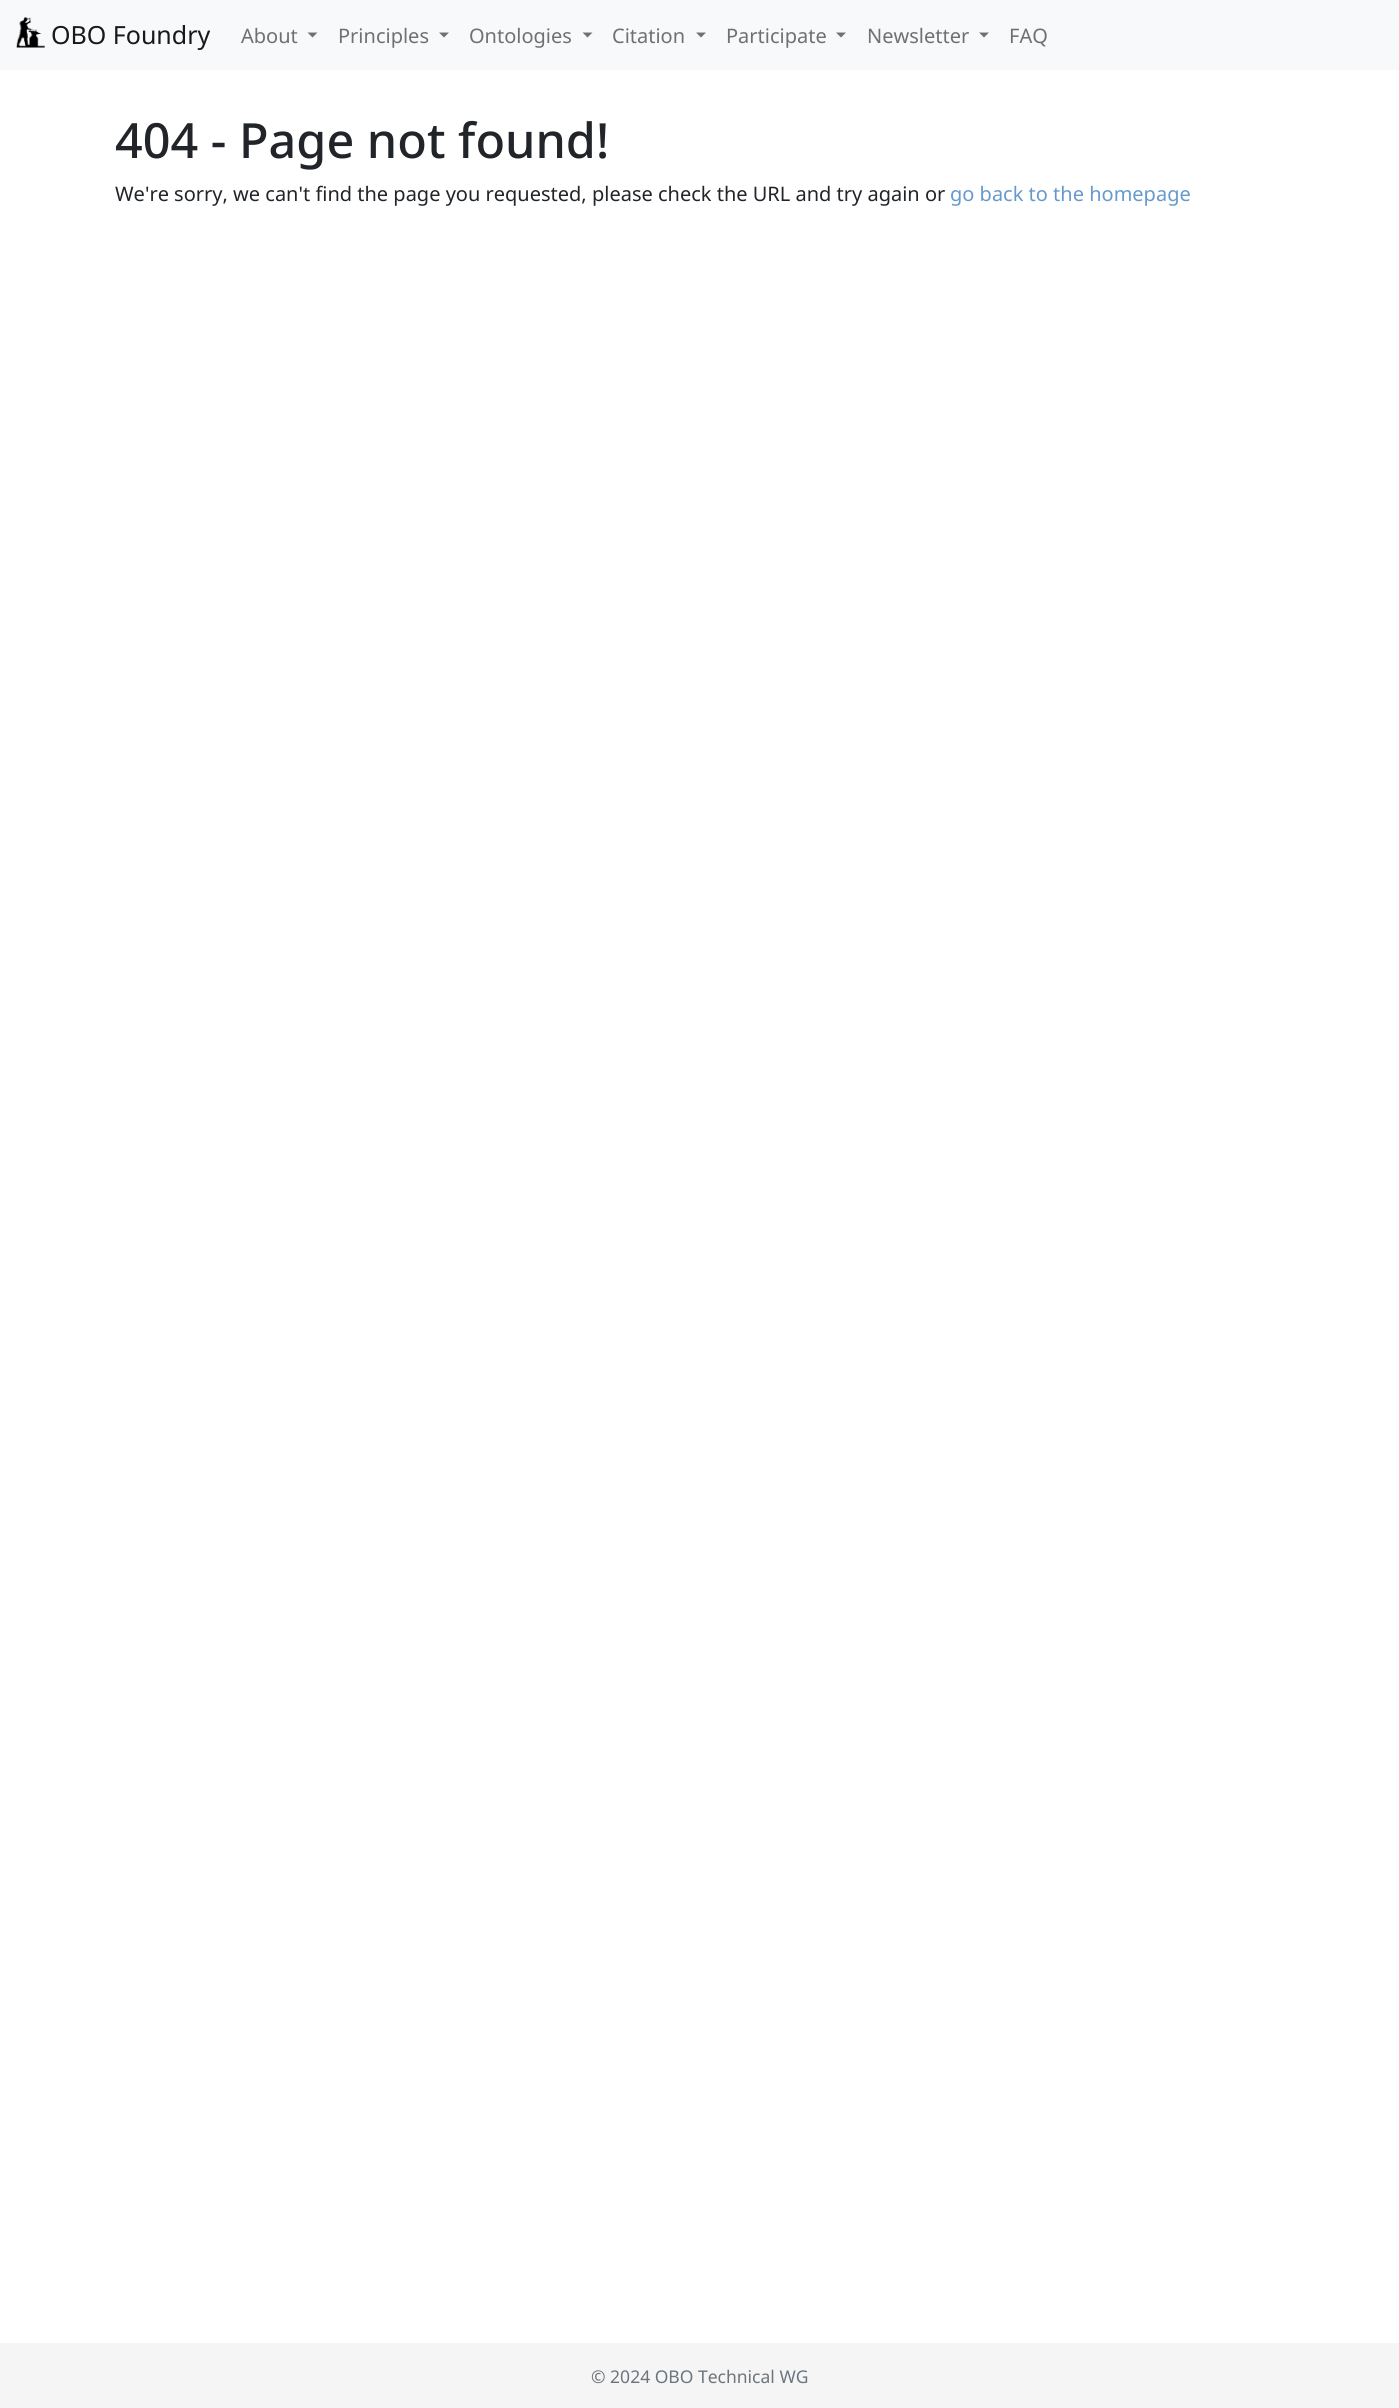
import math
import cairo

surface = cairo.ImageSurface(cairo.FORMAT_RGB24, 1399, 2408)
cr = cairo.Context(surface)
options = cairo.FontOptions()
options.set_hint_metrics(cairo.HINT_METRICS_OFF)
options.set_hint_style(cairo.HINT_STYLE_NONE)
cr.set_font_options(options)
cr.set_miter_limit(4)


def rgb(code):
    cr.set_source_rgb(*(v / 255 for v in bytes.fromhex(code[-6:])))


def image(path, x, y, w, h):
    cr.save()
    cr.set_source_surface(cairo.ImageSurface.create_from_png(path), x, y)
    cr.rectangle(x, y, w, h)
    cr.fill()
    cr.restore()


rgb("#ffffff")
cr.paint()
rgb("#f8f9fa")
cr.rectangle(0, 0, 1399, 70)
cr.fill()
image("img/1.png", 16, 17, 29, 31)
rgb("#707071")
cr.new_path()
cr.move_to(307.5, 32.5)
cr.line_to(317.5, 32.5)
cr.line_to(312.5, 37.5)
cr.close_path()
cr.fill()
cr.new_path()
cr.move_to(439, 32.5)
cr.line_to(449, 32.5)
cr.line_to(444, 37.5)
cr.close_path()
cr.fill()
cr.new_path()
cr.move_to(582.5, 32.5)
cr.line_to(592.5, 32.5)
cr.line_to(587.5, 37.5)
cr.close_path()
cr.fill()
cr.new_path()
cr.move_to(696, 32.5)
cr.line_to(706, 32.5)
cr.line_to(701, 37.5)
cr.close_path()
cr.fill()
cr.new_path()
cr.move_to(836, 32.5)
cr.line_to(846, 32.5)
cr.line_to(841, 37.5)
cr.close_path()
cr.fill()
cr.new_path()
cr.move_to(979, 32.5)
cr.line_to(989, 32.5)
cr.line_to(984, 37.5)
cr.close_path()
cr.fill()
rgb("#f5f5f5")
cr.rectangle(0, 2343, 1399, 65)
cr.fill()
cr.select_font_face("Noto Sans")
cr.set_font_size(25)
rgb("#191919")
cr.move_to(51, 44)
cr.show_text("OBO Foundry")
cr.set_font_size(20)
rgb("#707071")
for x, y, s in [
    (241, 43, "About"),
    (338, 43, "Principles"),
    (469, 43, "Ontologies"),
    (612, 43, "Citation"),
    (726, 43, "Participate"),
    (867, 43, "Newsletter"),
    (1009, 43, "FAQ"),
]:
    cr.move_to(x, y)
    cr.show_text(s)
cr.select_font_face("Noto Sans Medium")
cr.set_font_size(48.5)
rgb("#212529")
cr.move_to(115, 158)
cr.show_text("404 - Page not found!")
cr.select_font_face("Noto Sans")
cr.set_font_size(20)
cr.move_to(115, 201)
cr.show_text("We're sorry, we can't find the page you requested, please check the URL and try again or")
rgb("#6699cc")
cr.move_to(950, 201)
cr.show_text("go back to the homepage")
cr.set_font_size(17.5)
rgb("#6c757d")
cr.move_to(591, 2383)
cr.show_text("© 2024 OBO Technical WG")
surface.write_to_png("page.png")
